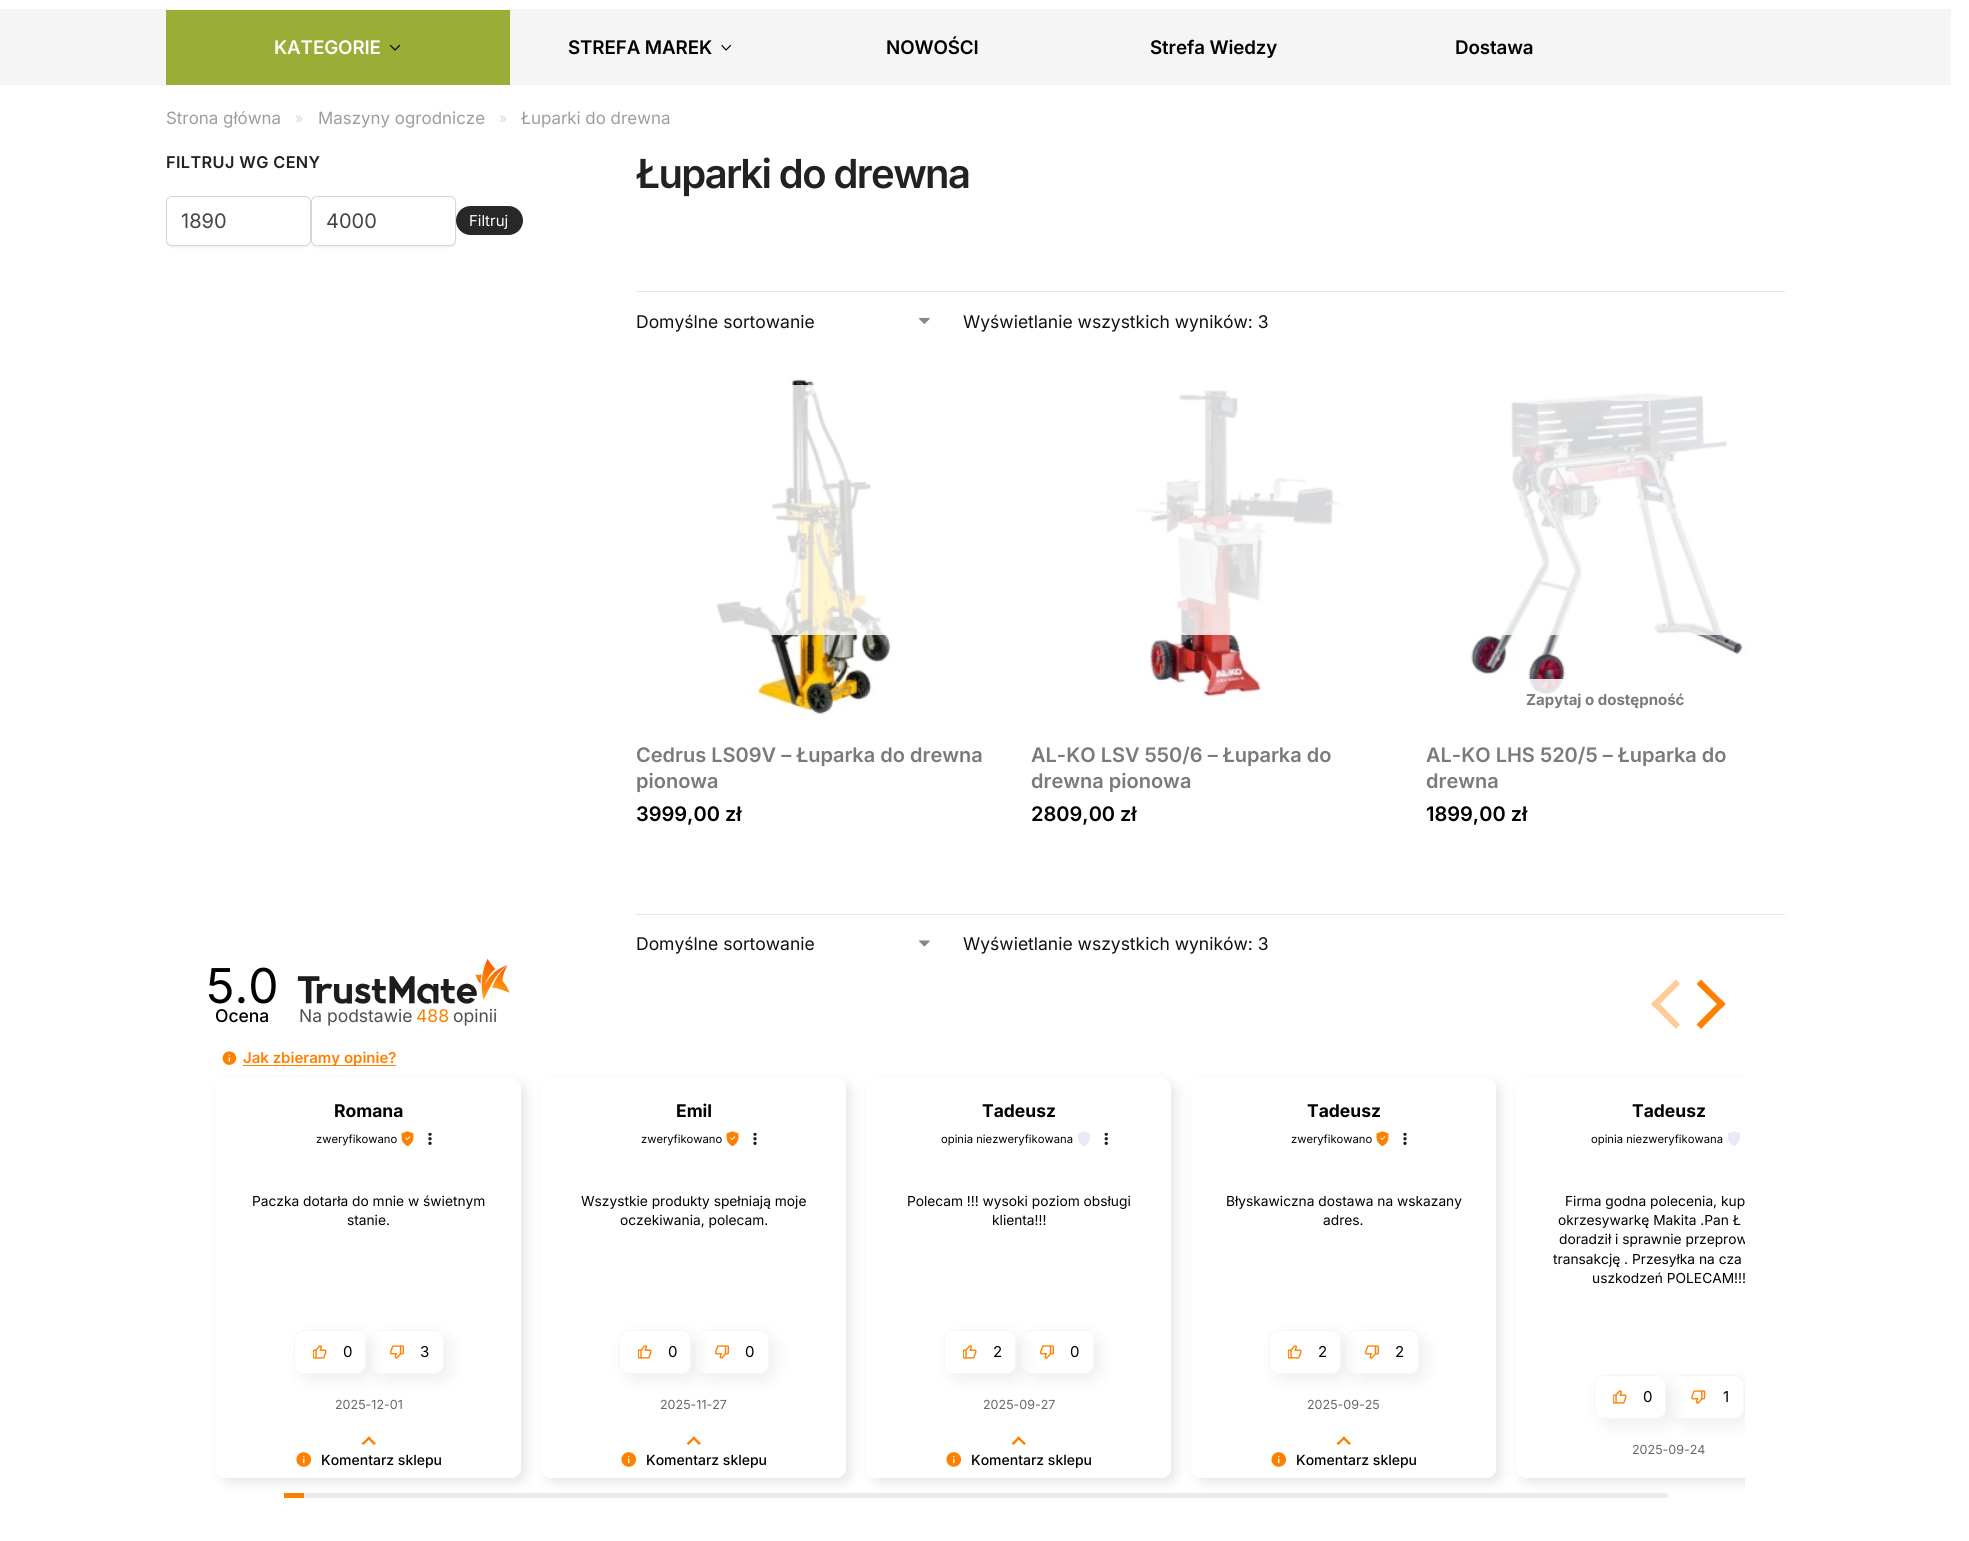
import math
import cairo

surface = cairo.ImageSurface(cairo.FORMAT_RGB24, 1969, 1541)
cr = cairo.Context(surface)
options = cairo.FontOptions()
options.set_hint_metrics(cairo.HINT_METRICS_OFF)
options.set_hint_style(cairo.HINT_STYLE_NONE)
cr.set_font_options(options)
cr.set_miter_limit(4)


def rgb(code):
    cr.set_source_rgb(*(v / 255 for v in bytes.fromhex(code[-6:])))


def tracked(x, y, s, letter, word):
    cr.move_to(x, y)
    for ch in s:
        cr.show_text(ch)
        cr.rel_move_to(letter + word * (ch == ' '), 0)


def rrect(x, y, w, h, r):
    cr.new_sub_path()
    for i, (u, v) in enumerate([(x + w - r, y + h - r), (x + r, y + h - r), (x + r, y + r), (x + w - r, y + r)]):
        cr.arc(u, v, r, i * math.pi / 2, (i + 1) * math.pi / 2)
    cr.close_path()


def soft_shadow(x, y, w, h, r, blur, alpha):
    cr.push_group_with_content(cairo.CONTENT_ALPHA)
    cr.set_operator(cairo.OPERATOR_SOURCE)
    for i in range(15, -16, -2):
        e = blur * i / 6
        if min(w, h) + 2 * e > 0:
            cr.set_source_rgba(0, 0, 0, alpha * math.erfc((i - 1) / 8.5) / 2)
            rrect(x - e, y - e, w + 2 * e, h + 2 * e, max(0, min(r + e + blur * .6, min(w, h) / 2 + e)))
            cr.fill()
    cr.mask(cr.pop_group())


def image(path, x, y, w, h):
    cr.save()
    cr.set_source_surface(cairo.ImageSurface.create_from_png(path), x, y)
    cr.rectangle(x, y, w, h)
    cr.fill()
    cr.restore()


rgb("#ffffff")
cr.paint()
rgb("#f5f5f5")
cr.rectangle(0, 9, 1951, 76)
cr.fill()
rgb("#99ad37")
cr.rectangle(166, 10, 344, 75)
cr.fill()
cr.new_path()
cr.move_to(399.5, 45.5)
cr.line_to(395, 50)
cr.line_to(390.5, 45.5)
rgb("#000000")
cr.set_line_width(1.2)
cr.set_line_cap(cairo.LINE_CAP_ROUND)
cr.set_line_join(cairo.LINE_JOIN_ROUND)
cr.stroke()
cr.new_path()
cr.move_to(730.5, 45.5)
cr.line_to(726, 50)
cr.line_to(722, 45.5)
cr.stroke()
image("img/2.png", 716, 379, 175, 338)
image("img/3.png", 1134, 388, 208, 310)
image("img/4.png", 1470, 392, 276, 305)
cr.set_source_rgba(1, 1, 1, 0.81)
cr.rectangle(716, 385, 1015, 250)
cr.fill()
rgb("#000000")
soft_shadow(166, 198, 145, 50, 6, 1, 0.05)
rgb("#ffffff")
rrect(166.5, 196.5, 144, 49, 5.5)
cr.fill_preserve()
rgb("#d2d6dc")
cr.set_line_width(1)
cr.set_line_cap(cairo.LINE_CAP_BUTT)
cr.set_line_join(cairo.LINE_JOIN_MITER)
cr.stroke()
rgb("#000000")
soft_shadow(311, 198, 145, 50, 6, 1, 0.05)
rgb("#ffffff")
rrect(311.5, 196.5, 144, 49, 5.5)
cr.fill_preserve()
rgb("#d2d6dc")
cr.stroke()
rgb("#282828")
rrect(456, 206, 67, 29, 14.5)
cr.fill()
rgb("#e5e5e5")
cr.rectangle(636, 291, 1149, 1)
cr.fill()
image("img/1.png", 919, 317, 11, 7)
cr.set_source_rgba(1, 1, 1, 0.85)
cr.rectangle(1528, 679, 37, 18)
cr.fill()
rgb("#e5e5e5")
cr.rectangle(636, 914, 1149, 1)
cr.fill()
image("img/5.png", 919, 940, 11, 7)
image("img/6.png", 297, 959, 213, 45)
rgb("#ffcc99")
cr.new_path()
cr.move_to(1680, 1024.5)
cr.line_to(1676, 1029)
cr.line_to(1651, 1004)
cr.line_to(1655.5, 999.5)
cr.close_path()
cr.fill()
cr.new_path()
cr.move_to(1680, 984)
cr.line_to(1655.5, 1008.5)
cr.line_to(1651, 1004)
cr.line_to(1676, 979.5)
cr.close_path()
cr.fill()
rgb("#ff8000")
cr.new_path()
cr.move_to(1696.5, 984)
cr.line_to(1701, 979.5)
cr.line_to(1725.5, 1004)
cr.line_to(1721.5, 1008.5)
cr.close_path()
cr.fill()
cr.new_path()
cr.move_to(1696.5, 1024.5)
cr.line_to(1721.5, 999.5)
cr.line_to(1725.5, 1004)
cr.line_to(1701, 1029)
cr.close_path()
cr.fill()
rgb("#ebebea")
rrect(284, 1493, 1384, 5, 2.5)
cr.fill()
rgb("#000000")
soft_shadow(221, 1083, 305, 400, 10, 6, 0.1)
image("img/7.png", 222, 1051, 15, 14)
rgb("#ff8000")
cr.rectangle(243, 1065, 153, 1)
cr.fill()
rgb("#ffffff")
rrect(216, 1078, 305, 400, 10)
cr.fill()
image("img/8.png", 401, 1131, 13, 15)
image("img/9.png", 428, 1133, 4, 12)
cr.save()
cr.set_fill_rule(cairo.FILL_RULE_EVEN_ODD)
cr.new_path()
cr.move_to(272, 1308)
cr.line_to(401, 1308)
cr.line_to(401, 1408)
cr.line_to(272, 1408)
cr.close_path()
cr.move_to(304, 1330)
cr.line_to(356, 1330)
cr.curve_to(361.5, 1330, 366, 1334.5, 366, 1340)
cr.line_to(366, 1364)
cr.curve_to(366, 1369.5, 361.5, 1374, 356, 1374)
cr.line_to(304, 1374)
cr.curve_to(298.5, 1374, 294, 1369.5, 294, 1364)
cr.line_to(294, 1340)
cr.curve_to(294, 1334.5, 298.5, 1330, 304, 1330)
cr.close_path()
cr.clip()
rgb("#000000")
soft_shadow(300, 1336, 73, 44, 10, 9, 0.07)
cr.restore()
rrect(294.5, 1330.5, 71, 43, 9.5)
rgb("#f6f6f6")
cr.stroke()
image("img/10.png", 313, 1345, 14, 14)
cr.save()
cr.set_fill_rule(cairo.FILL_RULE_EVEN_ODD)
cr.new_path()
cr.move_to(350, 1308)
cr.line_to(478, 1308)
cr.line_to(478, 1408)
cr.line_to(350, 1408)
cr.close_path()
cr.move_to(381, 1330)
cr.line_to(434, 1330)
cr.curve_to(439.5, 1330, 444, 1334.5, 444, 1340)
cr.line_to(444, 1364)
cr.curve_to(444, 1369.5, 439.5, 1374, 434, 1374)
cr.line_to(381, 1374)
cr.curve_to(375.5, 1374, 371, 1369.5, 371, 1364)
cr.line_to(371, 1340)
cr.curve_to(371, 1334.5, 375.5, 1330, 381, 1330)
cr.close_path()
cr.clip()
rgb("#000000")
soft_shadow(378, 1336, 72, 44, 10, 9, 0.07)
cr.restore()
rrect(371.5, 1330.5, 72, 43, 9.5)
cr.stroke()
image("img/11.png", 390, 1345, 14, 14)
rgb("#ffffff")
cr.new_path()
cr.move_to(236, 1428)
cr.line_to(501, 1428)
cr.curve_to(512, 1428, 521, 1437, 521, 1448)
cr.line_to(521, 1468)
cr.curve_to(521, 1473.5, 516.5, 1478, 511, 1478)
cr.line_to(226, 1478)
cr.curve_to(220.5, 1478, 216, 1473.5, 216, 1468)
cr.line_to(216, 1448)
cr.curve_to(216, 1437, 225, 1428, 236, 1428)
cr.close_path()
cr.fill()
rgb("#ff8000")
cr.new_path()
cr.move_to(363.5, 1445)
cr.line_to(361.5, 1443.5)
cr.line_to(369, 1436.5)
cr.line_to(370.5, 1438)
cr.close_path()
cr.fill()
cr.new_path()
cr.move_to(374, 1445)
cr.line_to(367, 1438)
cr.line_to(369, 1436.5)
cr.line_to(376, 1443.5)
cr.close_path()
cr.fill()
image("img/12.png", 296, 1452, 15, 15)
rgb("#000000")
soft_shadow(546, 1083, 305, 400, 10, 6, 0.1)
rgb("#ffffff")
rrect(541, 1078, 305, 400, 10)
cr.fill()
image("img/8.png", 726, 1131, 13, 15)
image("img/9.png", 753, 1133, 4, 12)
cr.save()
cr.set_fill_rule(cairo.FILL_RULE_EVEN_ODD)
cr.new_path()
cr.move_to(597, 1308)
cr.line_to(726, 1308)
cr.line_to(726, 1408)
cr.line_to(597, 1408)
cr.close_path()
cr.move_to(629, 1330)
cr.line_to(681, 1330)
cr.curve_to(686.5, 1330, 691, 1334.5, 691, 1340)
cr.line_to(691, 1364)
cr.curve_to(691, 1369.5, 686.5, 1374, 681, 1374)
cr.line_to(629, 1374)
cr.curve_to(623.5, 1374, 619, 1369.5, 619, 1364)
cr.line_to(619, 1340)
cr.curve_to(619, 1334.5, 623.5, 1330, 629, 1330)
cr.close_path()
cr.clip()
rgb("#000000")
soft_shadow(625, 1336, 73, 44, 10, 9, 0.07)
cr.restore()
rrect(619.5, 1330.5, 71, 43, 9.5)
rgb("#f6f6f6")
cr.stroke()
image("img/10.png", 638, 1345, 14, 14)
cr.save()
cr.set_fill_rule(cairo.FILL_RULE_EVEN_ODD)
cr.new_path()
cr.move_to(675, 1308)
cr.line_to(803, 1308)
cr.line_to(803, 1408)
cr.line_to(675, 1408)
cr.close_path()
cr.move_to(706, 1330)
cr.line_to(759, 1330)
cr.curve_to(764.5, 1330, 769, 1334.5, 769, 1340)
cr.line_to(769, 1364)
cr.curve_to(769, 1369.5, 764.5, 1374, 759, 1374)
cr.line_to(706, 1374)
cr.curve_to(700.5, 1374, 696, 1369.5, 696, 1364)
cr.line_to(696, 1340)
cr.curve_to(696, 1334.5, 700.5, 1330, 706, 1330)
cr.close_path()
cr.clip()
rgb("#000000")
soft_shadow(703, 1336, 72, 44, 10, 9, 0.07)
cr.restore()
rrect(696.5, 1330.5, 72, 43, 9.5)
cr.stroke()
image("img/11.png", 715, 1345, 14, 14)
rgb("#ffffff")
cr.new_path()
cr.move_to(561, 1428)
cr.line_to(826, 1428)
cr.curve_to(837, 1428, 846, 1437, 846, 1448)
cr.line_to(846, 1468)
cr.curve_to(846, 1473.5, 841.5, 1478, 836, 1478)
cr.line_to(551, 1478)
cr.curve_to(545.5, 1478, 541, 1473.5, 541, 1468)
cr.line_to(541, 1448)
cr.curve_to(541, 1437, 550, 1428, 561, 1428)
cr.close_path()
cr.fill()
rgb("#ff8000")
cr.new_path()
cr.move_to(688.5, 1445)
cr.line_to(686.5, 1443.5)
cr.line_to(694, 1436.5)
cr.line_to(695.5, 1438)
cr.close_path()
cr.fill()
cr.new_path()
cr.move_to(699, 1445)
cr.line_to(692, 1438)
cr.line_to(694, 1436.5)
cr.line_to(701, 1443.5)
cr.close_path()
cr.fill()
image("img/12.png", 621, 1452, 15, 15)
rgb("#000000")
soft_shadow(871, 1083, 305, 400, 10, 6, 0.1)
rgb("#ffffff")
rrect(866, 1078, 305, 400, 10)
cr.fill()
image("img/13.png", 1078, 1131, 12, 15)
image("img/14.png", 1104, 1133, 4, 12)
cr.save()
cr.set_fill_rule(cairo.FILL_RULE_EVEN_ODD)
cr.new_path()
cr.move_to(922, 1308)
cr.line_to(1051, 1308)
cr.line_to(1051, 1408)
cr.line_to(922, 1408)
cr.close_path()
cr.move_to(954, 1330)
cr.line_to(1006, 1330)
cr.curve_to(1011.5, 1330, 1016, 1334.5, 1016, 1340)
cr.line_to(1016, 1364)
cr.curve_to(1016, 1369.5, 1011.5, 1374, 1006, 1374)
cr.line_to(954, 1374)
cr.curve_to(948.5, 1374, 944, 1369.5, 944, 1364)
cr.line_to(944, 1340)
cr.curve_to(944, 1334.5, 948.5, 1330, 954, 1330)
cr.close_path()
cr.clip()
rgb("#000000")
soft_shadow(950, 1336, 73, 44, 10, 9, 0.07)
cr.restore()
rrect(944.5, 1330.5, 71, 43, 9.5)
rgb("#f6f6f6")
cr.stroke()
image("img/10.png", 963, 1345, 14, 14)
cr.save()
cr.set_fill_rule(cairo.FILL_RULE_EVEN_ODD)
cr.new_path()
cr.move_to(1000, 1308)
cr.line_to(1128, 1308)
cr.line_to(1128, 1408)
cr.line_to(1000, 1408)
cr.close_path()
cr.move_to(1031, 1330)
cr.line_to(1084, 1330)
cr.curve_to(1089.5, 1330, 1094, 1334.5, 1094, 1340)
cr.line_to(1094, 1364)
cr.curve_to(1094, 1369.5, 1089.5, 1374, 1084, 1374)
cr.line_to(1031, 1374)
cr.curve_to(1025.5, 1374, 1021, 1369.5, 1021, 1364)
cr.line_to(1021, 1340)
cr.curve_to(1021, 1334.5, 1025.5, 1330, 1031, 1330)
cr.close_path()
cr.clip()
rgb("#000000")
soft_shadow(1028, 1336, 72, 44, 10, 9, 0.07)
cr.restore()
rrect(1021.5, 1330.5, 72, 43, 9.5)
cr.stroke()
image("img/11.png", 1040, 1345, 14, 14)
rgb("#ffffff")
cr.new_path()
cr.move_to(886, 1428)
cr.line_to(1151, 1428)
cr.curve_to(1162, 1428, 1171, 1437, 1171, 1448)
cr.line_to(1171, 1468)
cr.curve_to(1171, 1473.5, 1166.5, 1478, 1161, 1478)
cr.line_to(876, 1478)
cr.curve_to(870.5, 1478, 866, 1473.5, 866, 1468)
cr.line_to(866, 1448)
cr.curve_to(866, 1437, 875, 1428, 886, 1428)
cr.close_path()
cr.fill()
rgb("#ff8000")
cr.new_path()
cr.move_to(1013.5, 1445)
cr.line_to(1011.5, 1443.5)
cr.line_to(1018.5, 1436.5)
cr.line_to(1020.5, 1438)
cr.close_path()
cr.fill()
cr.new_path()
cr.move_to(1024, 1445)
cr.line_to(1017, 1438)
cr.line_to(1018.5, 1436.5)
cr.line_to(1026, 1443.5)
cr.close_path()
cr.fill()
image("img/12.png", 946, 1452, 15, 15)
rgb("#000000")
soft_shadow(1196, 1083, 305, 400, 10, 6, 0.1)
rgb("#ffffff")
rrect(1191, 1078, 305, 400, 10)
cr.fill()
image("img/8.png", 1376, 1131, 13, 15)
image("img/9.png", 1403, 1133, 4, 12)
cr.save()
cr.set_fill_rule(cairo.FILL_RULE_EVEN_ODD)
cr.new_path()
cr.move_to(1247, 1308)
cr.line_to(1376, 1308)
cr.line_to(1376, 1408)
cr.line_to(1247, 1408)
cr.close_path()
cr.move_to(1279, 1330)
cr.line_to(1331, 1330)
cr.curve_to(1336.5, 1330, 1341, 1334.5, 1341, 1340)
cr.line_to(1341, 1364)
cr.curve_to(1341, 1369.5, 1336.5, 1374, 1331, 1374)
cr.line_to(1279, 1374)
cr.curve_to(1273.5, 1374, 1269, 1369.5, 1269, 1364)
cr.line_to(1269, 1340)
cr.curve_to(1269, 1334.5, 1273.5, 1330, 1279, 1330)
cr.close_path()
cr.clip()
rgb("#000000")
soft_shadow(1275, 1336, 73, 44, 10, 9, 0.07)
cr.restore()
rrect(1269.5, 1330.5, 71, 43, 9.5)
rgb("#f6f6f6")
cr.stroke()
image("img/10.png", 1288, 1345, 14, 14)
cr.save()
cr.set_fill_rule(cairo.FILL_RULE_EVEN_ODD)
cr.new_path()
cr.move_to(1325, 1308)
cr.line_to(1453, 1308)
cr.line_to(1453, 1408)
cr.line_to(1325, 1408)
cr.close_path()
cr.move_to(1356, 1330)
cr.line_to(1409, 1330)
cr.curve_to(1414.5, 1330, 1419, 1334.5, 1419, 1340)
cr.line_to(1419, 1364)
cr.curve_to(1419, 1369.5, 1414.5, 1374, 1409, 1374)
cr.line_to(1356, 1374)
cr.curve_to(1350.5, 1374, 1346, 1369.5, 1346, 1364)
cr.line_to(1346, 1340)
cr.curve_to(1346, 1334.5, 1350.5, 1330, 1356, 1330)
cr.close_path()
cr.clip()
rgb("#000000")
soft_shadow(1353, 1336, 72, 44, 10, 9, 0.07)
cr.restore()
rrect(1346.5, 1330.5, 72, 43, 9.5)
cr.stroke()
image("img/11.png", 1365, 1345, 14, 14)
rgb("#ffffff")
cr.new_path()
cr.move_to(1211, 1428)
cr.line_to(1476, 1428)
cr.curve_to(1487, 1428, 1496, 1437, 1496, 1448)
cr.line_to(1496, 1468)
cr.curve_to(1496, 1473.5, 1491.5, 1478, 1486, 1478)
cr.line_to(1201, 1478)
cr.curve_to(1195.5, 1478, 1191, 1473.5, 1191, 1468)
cr.line_to(1191, 1448)
cr.curve_to(1191, 1437, 1200, 1428, 1211, 1428)
cr.close_path()
cr.fill()
rgb("#ff8000")
cr.new_path()
cr.move_to(1338.5, 1445)
cr.line_to(1336.5, 1443.5)
cr.line_to(1344, 1436.5)
cr.line_to(1345.5, 1438)
cr.close_path()
cr.fill()
cr.new_path()
cr.move_to(1349, 1445)
cr.line_to(1342, 1438)
cr.line_to(1344, 1436.5)
cr.line_to(1351, 1443.5)
cr.close_path()
cr.fill()
image("img/12.png", 1271, 1452, 15, 15)
cr.save()
cr.rectangle(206, 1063, 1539, 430)
cr.clip()
rgb("#000000")
soft_shadow(1521, 1083, 305, 400, 10, 6, 0.1)
cr.restore()
rgb("#ffffff")
cr.new_path()
cr.move_to(1526, 1078)
cr.line_to(1745, 1078)
cr.line_to(1745, 1478)
cr.line_to(1526, 1478)
cr.curve_to(1520.5, 1478, 1516, 1473.5, 1516, 1468)
cr.line_to(1516, 1088)
cr.curve_to(1516, 1082.5, 1520.5, 1078, 1526, 1078)
cr.close_path()
cr.fill()
image("img/13.png", 1728, 1131, 12, 15)
cr.save()
cr.set_fill_rule(cairo.FILL_RULE_EVEN_ODD)
cr.new_path()
cr.move_to(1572, 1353)
cr.line_to(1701, 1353)
cr.line_to(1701, 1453)
cr.line_to(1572, 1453)
cr.close_path()
cr.move_to(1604, 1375)
cr.line_to(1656, 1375)
cr.curve_to(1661.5, 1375, 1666, 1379.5, 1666, 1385)
cr.line_to(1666, 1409)
cr.curve_to(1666, 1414.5, 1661.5, 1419, 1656, 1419)
cr.line_to(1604, 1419)
cr.curve_to(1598.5, 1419, 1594, 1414.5, 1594, 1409)
cr.line_to(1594, 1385)
cr.curve_to(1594, 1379.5, 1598.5, 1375, 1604, 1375)
cr.close_path()
cr.clip()
rgb("#000000")
soft_shadow(1600, 1381, 73, 44, 10, 9, 0.07)
cr.restore()
rrect(1594.5, 1375.5, 71, 43, 9.5)
rgb("#f6f6f6")
cr.stroke()
image("img/10.png", 1613, 1390, 14, 14)
cr.save()
cr.rectangle(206, 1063, 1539, 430)
cr.clip()
cr.set_fill_rule(cairo.FILL_RULE_EVEN_ODD)
cr.new_path()
cr.move_to(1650, 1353)
cr.line_to(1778, 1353)
cr.line_to(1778, 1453)
cr.line_to(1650, 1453)
cr.close_path()
cr.move_to(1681, 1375)
cr.line_to(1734, 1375)
cr.curve_to(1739.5, 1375, 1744, 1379.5, 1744, 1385)
cr.line_to(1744, 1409)
cr.curve_to(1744, 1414.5, 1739.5, 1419, 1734, 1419)
cr.line_to(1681, 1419)
cr.curve_to(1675.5, 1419, 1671, 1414.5, 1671, 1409)
cr.line_to(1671, 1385)
cr.curve_to(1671, 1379.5, 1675.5, 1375, 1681, 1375)
cr.close_path()
cr.clip()
rgb("#000000")
soft_shadow(1678, 1381, 72, 44, 10, 9, 0.07)
cr.restore()
rrect(1671.5, 1375.5, 72, 43, 9.5)
cr.stroke()
image("img/15.png", 1691, 1390, 15, 14)
rgb("#ff8000")
cr.rectangle(284, 1493, 20, 5)
cr.fill()
cr.select_font_face("Inter SemiBold")
cr.set_font_size(18.75)
rgb("#ffffff")
tracked(274, 54, "KATEGORIE", -0.1, 0)
rgb("#000000")
for x, y, s in [
    (568, 54, "STREFA MAREK"),
    (886, 54, "NOWOŚCI"),
    (1150, 54, "Strefa Wiedzy"),
    (1455, 54, "Dostawa"),
]:
    tracked(x, y, s, -0.1, 0)
cr.select_font_face("Inter")
cr.set_font_size(16.9)
rgb("#9d9d9d")
cr.move_to(166, 124)
cr.show_text("Strona główna")
cr.set_font_size(14)
rgb("#d8d8d8")
cr.move_to(295, 123)
cr.show_text("»")
cr.set_font_size(16.9)
rgb("#9d9d9d")
cr.move_to(318, 124)
cr.show_text("Maszyny ogrodnicze")
cr.set_font_size(14)
rgb("#d8d8d8")
cr.move_to(499, 123)
cr.show_text("»")
cr.set_font_size(16.9)
rgb("#9d9d9d")
cr.move_to(521, 124)
cr.show_text("Łuparki do drewna")
cr.select_font_face("Inter SemiBold")
cr.set_font_size(16.25)
rgb("#222222")
tracked(166, 168, "FILTRUJ WG CENY", 0.4, 0)
cr.select_font_face("Inter")
cr.set_font_size(20)
rgb("#444444")
cr.move_to(181, 228)
cr.show_text("1890")
cr.move_to(326, 228)
cr.show_text("4000")
cr.set_font_size(15)
rgb("#ffffff")
cr.move_to(469, 226)
cr.show_text("Filtruj")
cr.select_font_face("Inter SemiBold")
cr.set_font_size(40)
rgb("#222222")
tracked(636, 188, "Łuparki do drewna", -1.6, 0)
cr.select_font_face("Inter")
cr.set_font_size(17.5)
rgb("#111111")
cr.move_to(636, 328)
cr.show_text("Domyślne sortowanie")
cr.move_to(963, 328)
cr.show_text("Wyświetlanie wszystkich wyników: 3")
cr.select_font_face("Inter SemiBold")
cr.set_font_size(20)
rgb("#7a7a7a")
cr.move_to(636, 762)
cr.show_text("Cedrus LS09V – Łuparka do drewna")
cr.move_to(636, 788)
cr.show_text("pionowa")
rgb("#000000")
cr.move_to(636, 821)
cr.show_text("3999,00 zł")
rgb("#7a7a7a")
cr.move_to(1031, 762)
cr.show_text("AL-KO LSV 550/6 – Łuparka do")
cr.move_to(1031, 788)
cr.show_text("drewna pionowa")
rgb("#000000")
cr.move_to(1031, 821)
cr.show_text("2809,00 zł")
cr.select_font_face("Inter", cairo.FONT_SLANT_NORMAL, cairo.FONT_WEIGHT_BOLD)
cr.set_font_size(15)
rgb("#7a7a7a")
cr.move_to(1526, 705)
cr.show_text("Zapytaj o dostępność")
cr.select_font_face("Inter SemiBold")
cr.set_font_size(20)
cr.move_to(1426, 762)
cr.show_text("AL-KO LHS 520/5 – Łuparka do")
cr.move_to(1426, 788)
cr.show_text("drewna")
rgb("#000000")
cr.move_to(1426, 821)
cr.show_text("1899,00 zł")
cr.select_font_face("Inter")
cr.set_font_size(17.5)
rgb("#111111")
cr.move_to(636, 950)
cr.show_text("Domyślne sortowanie")
cr.move_to(963, 950)
cr.show_text("Wyświetlanie wszystkich wyników: 3")
cr.set_font_size(48)
rgb("#000000")
cr.move_to(206, 1003)
cr.show_text("5.0")
cr.select_font_face("Inter Medium")
cr.set_font_size(17.5)
cr.move_to(215, 1022)
cr.show_text("Ocena")
cr.select_font_face("Inter")
rgb("#4f4f4f")
cr.move_to(299, 1022)
cr.show_text("Na podstawie")
rgb("#ff8000")
cr.move_to(416, 1022)
cr.show_text("488")
rgb("#4f4f4f")
cr.move_to(453, 1022)
cr.show_text("opinii")
cr.select_font_face("Inter SemiBold")
cr.set_font_size(15)
rgb("#ff8000")
cr.move_to(243, 1063)
cr.show_text("Jak zbieramy opinie?")
cr.select_font_face("Inter", cairo.FONT_SLANT_NORMAL, cairo.FONT_WEIGHT_BOLD)
cr.set_font_size(17.5)
rgb("#000000")
cr.move_to(334, 1117)
cr.show_text("Romana")
cr.select_font_face("Inter")
cr.set_font_size(11.25)
cr.move_to(316, 1143)
cr.show_text("zweryfikowano")
cr.set_font_size(13.75)
cr.move_to(252, 1206)
cr.show_text("Paczka dotarła do mnie w świetnym")
cr.move_to(347, 1225)
cr.show_text("stanie.")
cr.set_font_size(15)
cr.move_to(343, 1357)
cr.show_text("0")
cr.move_to(420, 1357)
cr.show_text("3")
cr.set_font_size(12.5)
rgb("#666666")
cr.move_to(335, 1409)
cr.show_text("2025-12-01")
cr.select_font_face("Inter Medium")
cr.set_font_size(14)
rgb("#000000")
cr.move_to(321, 1465)
cr.show_text("Komentarz sklepu")
cr.select_font_face("Inter", cairo.FONT_SLANT_NORMAL, cairo.FONT_WEIGHT_BOLD)
cr.set_font_size(17.5)
cr.move_to(676, 1117)
cr.show_text("Emil")
cr.select_font_face("Inter")
cr.set_font_size(11.25)
cr.move_to(641, 1143)
cr.show_text("zweryfikowano")
cr.set_font_size(13.75)
cr.move_to(581, 1206)
cr.show_text("Wszystkie produkty spełniają moje")
cr.move_to(620, 1225)
cr.show_text("oczekiwania, polecam.")
cr.set_font_size(15)
cr.move_to(668, 1357)
cr.show_text("0")
cr.move_to(745, 1357)
cr.show_text("0")
cr.set_font_size(12.5)
rgb("#666666")
cr.move_to(660, 1409)
cr.show_text("2025-11-27")
cr.select_font_face("Inter Medium")
cr.set_font_size(14)
rgb("#000000")
cr.move_to(646, 1465)
cr.show_text("Komentarz sklepu")
cr.select_font_face("Inter", cairo.FONT_SLANT_NORMAL, cairo.FONT_WEIGHT_BOLD)
cr.set_font_size(17.5)
cr.move_to(982, 1117)
cr.show_text("Tadeusz")
cr.select_font_face("Inter")
cr.set_font_size(11.25)
cr.move_to(941, 1143)
cr.show_text("opinia niezweryfikowana")
cr.set_font_size(13.75)
cr.move_to(907, 1206)
cr.show_text("Polecam !!! wysoki poziom obsługi")
cr.move_to(992, 1225)
cr.show_text("klienta!!!")
cr.set_font_size(15)
cr.move_to(993, 1357)
cr.show_text("2")
cr.move_to(1070, 1357)
cr.show_text("0")
cr.set_font_size(12.5)
rgb("#666666")
cr.move_to(983, 1409)
cr.show_text("2025-09-27")
cr.select_font_face("Inter Medium")
cr.set_font_size(14)
rgb("#000000")
cr.move_to(971, 1465)
cr.show_text("Komentarz sklepu")
cr.select_font_face("Inter", cairo.FONT_SLANT_NORMAL, cairo.FONT_WEIGHT_BOLD)
cr.set_font_size(17.5)
cr.move_to(1307, 1117)
cr.show_text("Tadeusz")
cr.select_font_face("Inter")
cr.set_font_size(11.25)
cr.move_to(1291, 1143)
cr.show_text("zweryfikowano")
cr.set_font_size(13.75)
cr.move_to(1226, 1206)
cr.show_text("Błyskawiczna dostawa na wskazany")
cr.move_to(1323, 1225)
cr.show_text("adres.")
cr.set_font_size(15)
cr.move_to(1318, 1357)
cr.show_text("2")
cr.move_to(1395, 1357)
cr.show_text("2")
cr.set_font_size(12.5)
rgb("#666666")
cr.move_to(1307, 1409)
cr.show_text("2025-09-25")
cr.select_font_face("Inter Medium")
cr.set_font_size(14)
rgb("#000000")
cr.move_to(1296, 1465)
cr.show_text("Komentarz sklepu")
cr.select_font_face("Inter", cairo.FONT_SLANT_NORMAL, cairo.FONT_WEIGHT_BOLD)
cr.set_font_size(17.5)
cr.move_to(1632, 1117)
cr.show_text("Tadeusz")
cr.select_font_face("Inter")
cr.set_font_size(11.25)
cr.move_to(1591, 1143)
cr.show_text("opinia niezweryfikowana")
cr.set_font_size(13.75)
cr.move_to(1565, 1206)
cr.show_text("Firma godna polecenia, kup")
cr.move_to(1558, 1225)
cr.show_text("okrzesywarkę Makita .Pan Ł")
cr.save()
cr.rectangle(1526, 1193, 219, 166)
cr.clip()
cr.move_to(1559, 1244)
cr.show_text("doradził i sprawnie przeprow")
cr.restore()
cr.move_to(1553, 1264)
cr.show_text("transakcję . Przesyłka na cza")
cr.move_to(1592, 1283)
cr.show_text("uszkodzeń POLECAM!!!")
cr.set_font_size(15)
cr.move_to(1643, 1402)
cr.show_text("0")
cr.move_to(1723, 1402)
cr.show_text("1")
cr.set_font_size(12.5)
rgb("#666666")
cr.move_to(1632, 1454)
cr.show_text("2025-09-24")
surface.write_to_png("page.png")
